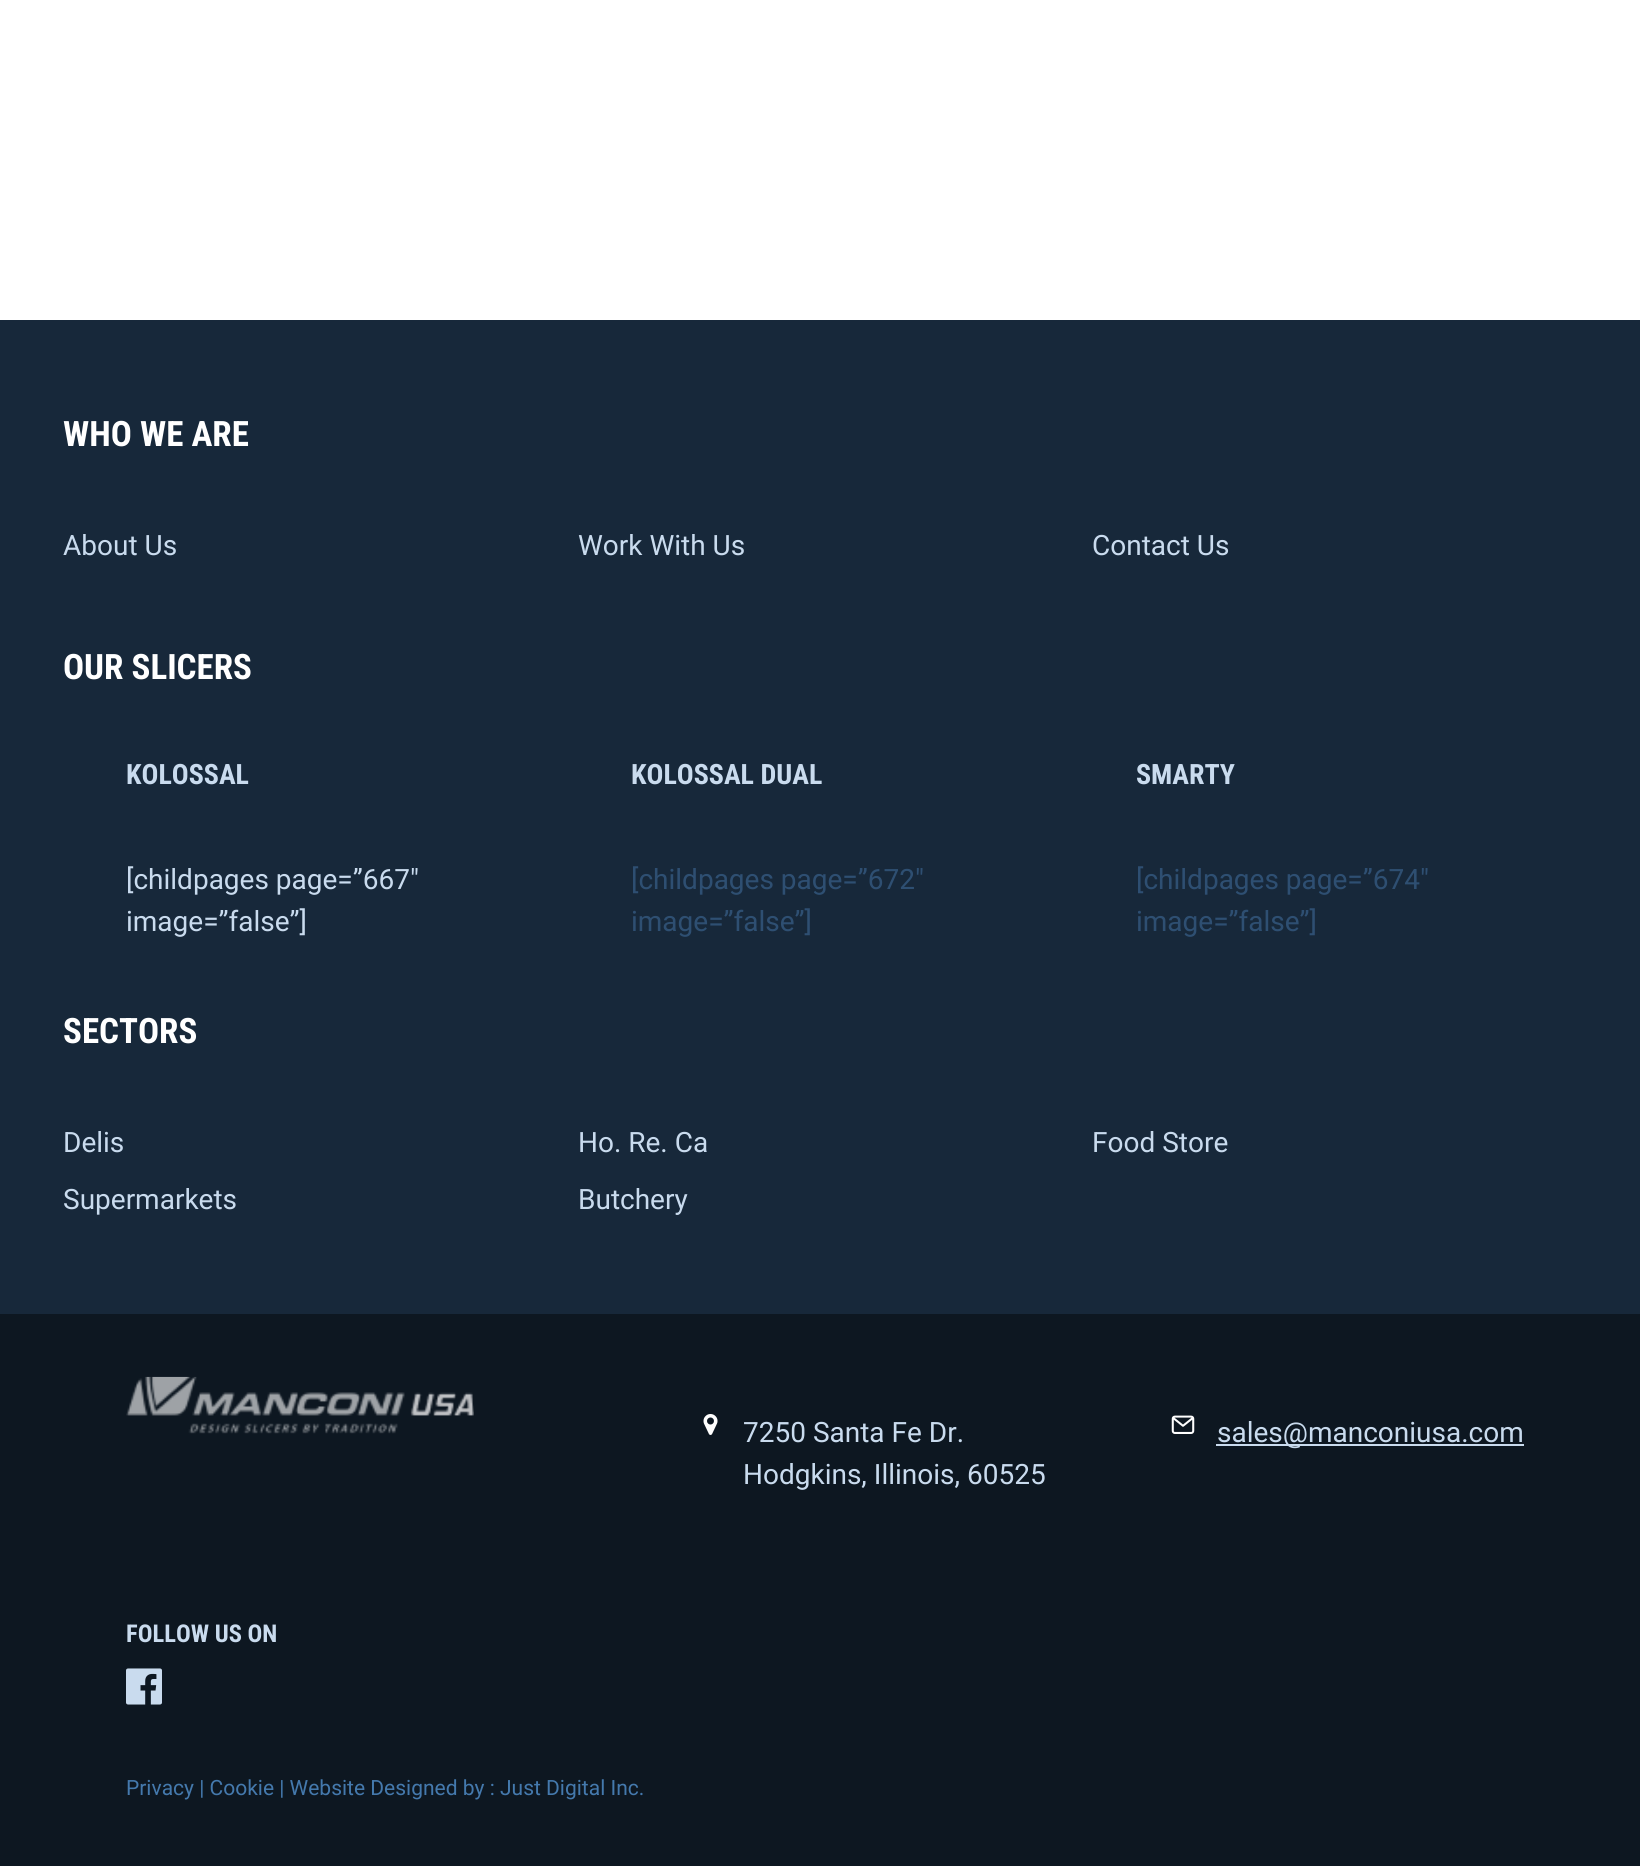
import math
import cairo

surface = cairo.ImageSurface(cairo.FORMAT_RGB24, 1640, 1866)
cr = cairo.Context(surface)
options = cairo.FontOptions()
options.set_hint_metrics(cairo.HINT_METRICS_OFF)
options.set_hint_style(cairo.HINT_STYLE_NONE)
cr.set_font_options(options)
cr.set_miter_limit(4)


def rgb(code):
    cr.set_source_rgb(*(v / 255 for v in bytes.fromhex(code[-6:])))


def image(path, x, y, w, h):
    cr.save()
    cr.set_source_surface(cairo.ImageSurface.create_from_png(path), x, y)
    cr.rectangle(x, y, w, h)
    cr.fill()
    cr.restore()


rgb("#ffffff")
cr.paint()
rgb("#17283a")
cr.rectangle(0, 320, 1640, 994)
cr.fill()
rgb("#0d1721")
cr.rectangle(0, 1314, 1640, 552)
cr.fill()
image("img/1.png", 126, 1376, 348, 58)
image("img/2.png", 703, 1414, 15, 21)
image("img/3.png", 1171, 1415, 24, 19)
rgb("#c9dbee")
cr.rectangle(1216, 1444, 308, 2)
cr.fill()
image("img/4.png", 126, 1668, 36, 37)
cr.select_font_face("Roboto Condensed", cairo.FONT_SLANT_NORMAL, cairo.FONT_WEIGHT_BOLD)
cr.set_font_size(35)
rgb("#ffffff")
cr.move_to(63, 446)
cr.show_text("WHO WE ARE")
cr.select_font_face("Roboto")
cr.set_font_size(28)
rgb("#c9dbee")
for x, y, s in [
    (63, 555, "About Us"),
    (578, 555, "Work With Us"),
    (1092, 555, "Contact Us"),
]:
    cr.move_to(x, y)
    cr.show_text(s)
cr.select_font_face("Roboto Condensed", cairo.FONT_SLANT_NORMAL, cairo.FONT_WEIGHT_BOLD)
cr.set_font_size(35)
rgb("#ffffff")
cr.move_to(63, 679)
cr.show_text("OUR SLICERS")
cr.set_font_size(28)
rgb("#c9dbee")
cr.move_to(126, 784)
cr.show_text("KOLOSSAL")
cr.select_font_face("Roboto")
cr.move_to(126, 889)
cr.show_text("[childpages page=”667″")
cr.move_to(126, 931)
cr.show_text("image=”false”]")
cr.select_font_face("Roboto Condensed", cairo.FONT_SLANT_NORMAL, cairo.FONT_WEIGHT_BOLD)
cr.move_to(631, 784)
cr.show_text("KOLOSSAL DUAL")
cr.select_font_face("Roboto")
rgb("#2e4f72")
cr.move_to(631, 889)
cr.show_text("[childpages page=”672″")
cr.move_to(631, 931)
cr.show_text("image=”false”]")
cr.select_font_face("Roboto Condensed", cairo.FONT_SLANT_NORMAL, cairo.FONT_WEIGHT_BOLD)
rgb("#c9dbee")
cr.move_to(1136, 784)
cr.show_text("SMARTY")
cr.select_font_face("Roboto")
rgb("#2e4f72")
cr.move_to(1136, 889)
cr.show_text("[childpages page=”674″")
cr.move_to(1136, 931)
cr.show_text("image=”false”]")
cr.select_font_face("Roboto Condensed", cairo.FONT_SLANT_NORMAL, cairo.FONT_WEIGHT_BOLD)
cr.set_font_size(35)
rgb("#ffffff")
cr.move_to(63, 1043)
cr.show_text("SECTORS")
cr.select_font_face("Roboto")
cr.set_font_size(28)
rgb("#c9dbee")
for x, y, s in [
    (63, 1152, "Delis"),
    (578, 1152, "Ho. Re. Ca"),
    (1092, 1152, "Food Store"),
    (63, 1209, "Supermarkets"),
    (578, 1209, "Butchery"),
    (743, 1442, "7250 Santa Fe Dr."),
    (743, 1484, "Hodgkins, Illinois, 60525"),
    (1217, 1442, "sales@manconiusa.com"),
]:
    cr.move_to(x, y)
    cr.show_text(s)
cr.select_font_face("Roboto Condensed", cairo.FONT_SLANT_NORMAL, cairo.FONT_WEIGHT_BOLD)
cr.set_font_size(24.5)
cr.move_to(126, 1642)
cr.show_text("FOLLOW US ON")
cr.select_font_face("Roboto")
cr.set_font_size(21)
rgb("#4479ad")
cr.move_to(126, 1795)
cr.show_text("Privacy | Cookie | Website Designed by : Just Digital Inc.")
surface.write_to_png("page.png")
